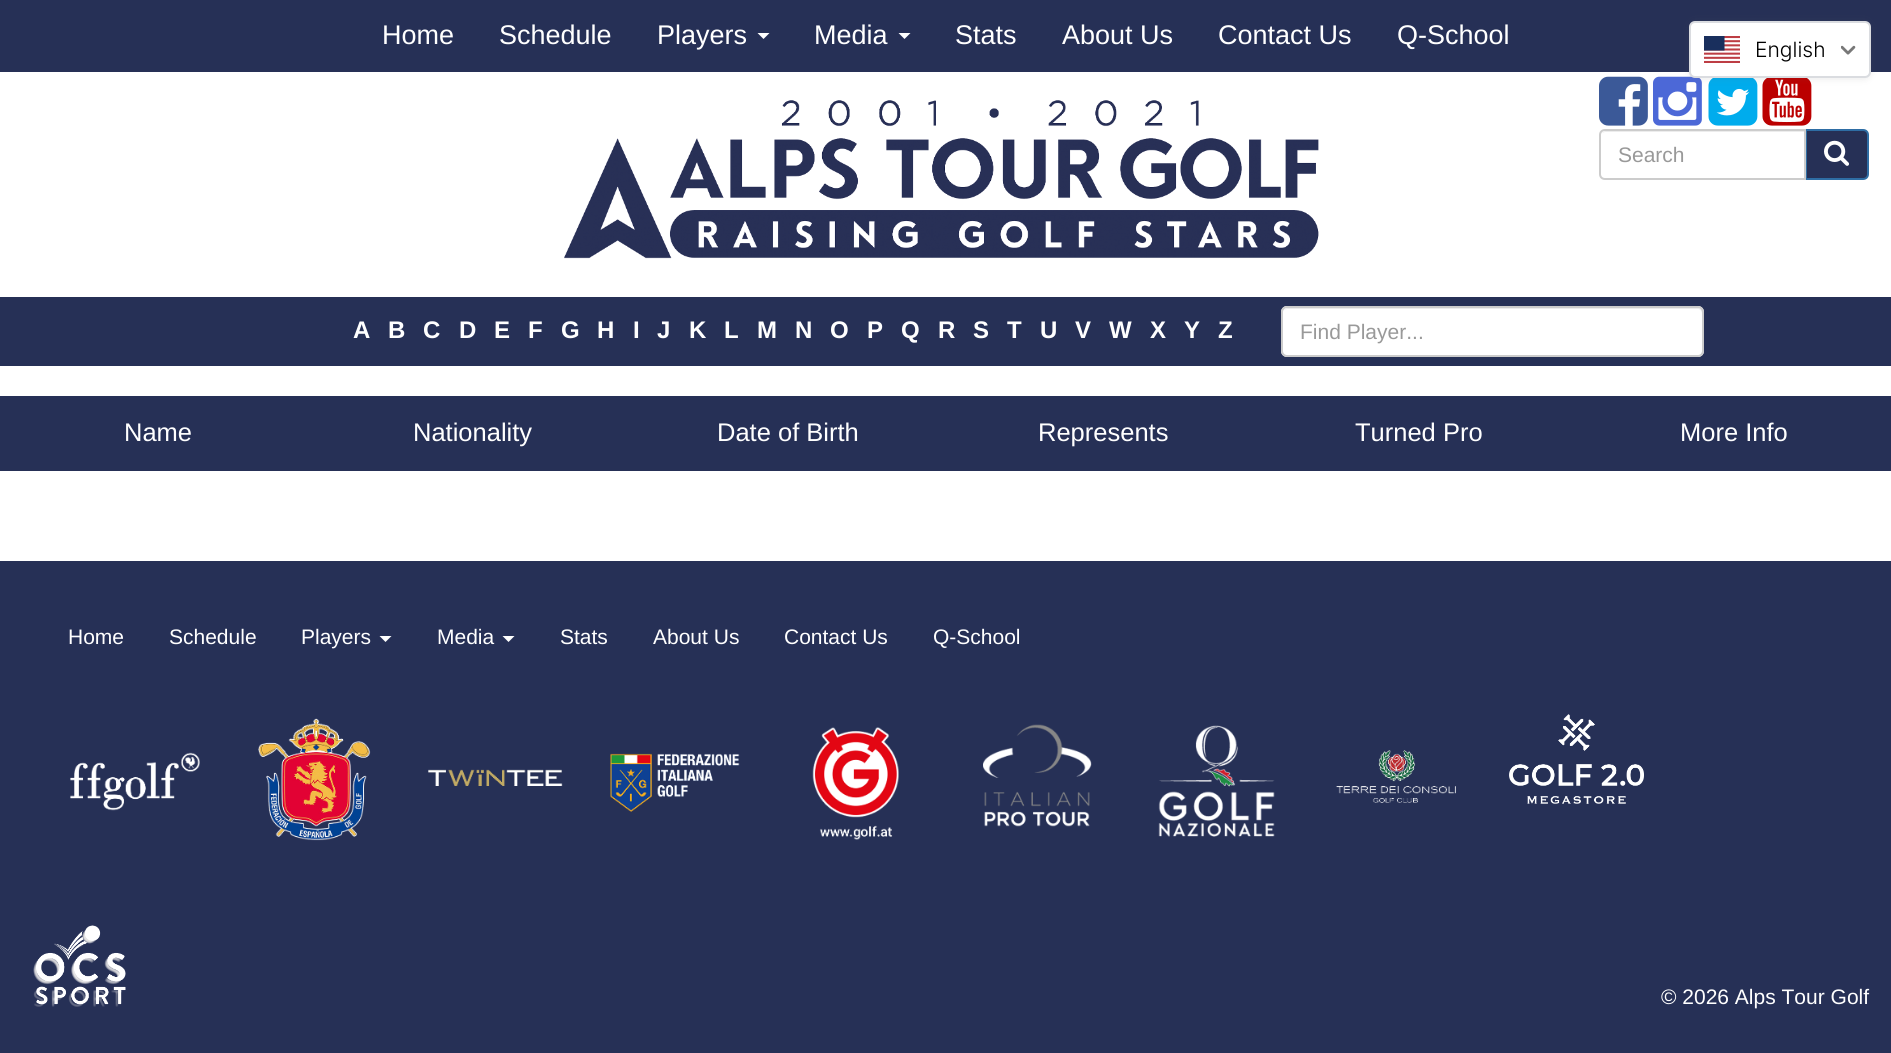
import math
import cairo

surface = cairo.ImageSurface(cairo.FORMAT_RGB24, 1891, 1053)
cr = cairo.Context(surface)
options = cairo.FontOptions()
options.set_hint_metrics(cairo.HINT_METRICS_OFF)
options.set_hint_style(cairo.HINT_STYLE_NONE)
cr.set_font_options(options)
cr.set_miter_limit(4)


def rgb(code):
    cr.set_source_rgb(*(v / 255 for v in bytes.fromhex(code[-6:])))


def rrect(x, y, w, h, r):
    cr.new_sub_path()
    for i, (u, v) in enumerate([(x + w - r, y + h - r), (x + r, y + h - r), (x + r, y + r), (x + w - r, y + r)]):
        cr.arc(u, v, r, i * math.pi / 2, (i + 1) * math.pi / 2)
    cr.close_path()


def soft_shadow(x, y, w, h, r, blur, alpha):
    cr.push_group_with_content(cairo.CONTENT_ALPHA)
    cr.set_operator(cairo.OPERATOR_SOURCE)
    for i in range(15, -16, -2):
        e = blur * i / 6
        if min(w, h) + 2 * e > 0:
            cr.set_source_rgba(0, 0, 0, alpha * math.erfc((i - 1) / 8.5) / 2)
            rrect(x - e, y - e, w + 2 * e, h + 2 * e, max(0, min(r + e + blur * .6, min(w, h) / 2 + e)))
            cr.fill()
    cr.mask(cr.pop_group())


def image(path, x, y, w, h):
    cr.save()
    cr.set_source_surface(cairo.ImageSurface.create_from_png(path), x, y)
    cr.rectangle(x, y, w, h)
    cr.fill()
    cr.restore()


rgb("#ffffff")
cr.paint()
rgb("#263056")
cr.rectangle(0, 0, 1891, 72)
cr.fill()
rgb("#ffffff")
cr.new_path()
cr.move_to(757.5, 33)
cr.line_to(769.5, 33)
cr.line_to(763.5, 39)
cr.close_path()
cr.fill()
cr.new_path()
cr.move_to(898.5, 33)
cr.line_to(910.5, 33)
cr.line_to(904.5, 39)
cr.close_path()
cr.fill()
image("img/5.png", 1653, 76, 49, 50)
image("img/6.png", 1708, 78, 50, 48)
image("img/7.png", 1762, 78, 50, 48)
rgb("#5d5d5d")
soft_shadow(1688, 20, 184, 60, 8, 3, 0.1)
rgb("#ffffff")
rrect(1690, 22, 180, 55, 5)
cr.fill_preserve()
rgb("#dadce0")
cr.stroke()
image("img/1.png", 1704, 36, 36, 27)
image("img/2.png", 1841, 45, 15, 10)
image("img/3.png", 564, 100, 755, 159)
image("img/4.png", 1599, 76, 49, 50)
rgb("#263056")
cr.new_path()
cr.move_to(1806, 130)
cr.line_to(1863, 130)
cr.curve_to(1866, 130, 1868, 132, 1868, 135)
cr.line_to(1868, 174)
cr.curve_to(1868, 177, 1866, 179, 1863, 179)
cr.line_to(1806, 179)
cr.close_path()
cr.fill_preserve()
rgb("#2e6da4")
cr.stroke()
rgb("#ffffff")
cr.new_path()
cr.move_to(1605, 129)
cr.line_to(1806, 129)
cr.line_to(1806, 180)
cr.line_to(1605, 180)
cr.curve_to(1601.5, 180, 1599, 177.5, 1599, 174)
cr.line_to(1599, 135)
cr.curve_to(1599, 131.5, 1601.5, 129, 1605, 129)
cr.close_path()
cr.fill()
rgb("#ececec")
cr.new_path()
cr.move_to(1605, 132)
cr.line_to(1804, 132)
cr.line_to(1804, 179)
cr.line_to(1805, 179)
cr.line_to(1805, 131)
cr.line_to(1606, 131)
cr.curve_to(1604, 131, 1603, 132, 1602, 133)
cr.close_path()
cr.fill()
cr.new_path()
cr.move_to(1605, 130)
cr.line_to(1805, 130)
cr.line_to(1805, 179)
cr.line_to(1605, 179)
cr.curve_to(1602, 179, 1600, 177, 1600, 174)
cr.line_to(1600, 135)
cr.curve_to(1600, 132, 1602, 130, 1605, 130)
cr.close_path()
rgb("#cccccc")
cr.stroke()
image("img/8.png", 1824, 140, 25, 26)
rgb("#263056")
cr.rectangle(0, 297, 1891, 69)
cr.fill()
rgb("#ffffff")
rrect(1281, 306, 423, 51, 6)
cr.fill()
rgb("#ececec")
cr.new_path()
cr.move_to(1287, 309)
cr.line_to(1698, 309)
cr.curve_to(1700, 309, 1702, 311, 1702, 314)
cr.line_to(1702, 352)
cr.line_to(1701, 355)
cr.curve_to(1702, 354, 1703, 352, 1703, 351)
cr.line_to(1703, 313)
cr.curve_to(1703, 310, 1701, 308, 1698, 308)
cr.line_to(1288, 308)
cr.curve_to(1286, 308, 1285, 309, 1284, 310)
cr.close_path()
cr.fill()
rrect(1282, 307, 421, 49, 5)
rgb("#cccccc")
cr.stroke()
rgb("#263056")
cr.rectangle(0, 396, 1891, 75)
cr.fill()
cr.rectangle(0, 561, 1891, 492)
cr.fill()
rgb("#ffffff")
cr.new_path()
cr.move_to(379.5, 636)
cr.line_to(391.5, 636)
cr.line_to(385.5, 642)
cr.close_path()
cr.fill()
cr.new_path()
cr.move_to(502.5, 636)
cr.line_to(514.5, 636)
cr.line_to(508.5, 642)
cr.close_path()
cr.fill()
image("img/9.png", 70, 752, 130, 59)
image("img/10.png", 258, 718, 113, 123)
image("img/11.png", 428, 769, 135, 17)
image("img/12.png", 610, 753, 130, 59)
image("img/13.png", 812, 727, 87, 113)
image("img/14.png", 983, 724, 109, 103)
image("img/15.png", 1158, 725, 117, 112)
image("img/16.png", 1336, 750, 120, 53)
image("img/17.png", 1509, 714, 135, 90)
image("img/18.png", 33, 925, 93, 82)
cr.select_font_face("Liberation Sans")
cr.set_font_size(27)
for x, y, s in [
    (382, 44, "Home"),
    (499, 44, "Schedule"),
    (657, 44, "Players"),
    (814, 44, "Media"),
    (955, 44, "Stats"),
    (1062, 44, "About Us"),
    (1218, 44, "Contact Us"),
    (1397, 44, "Q-School"),
]:
    cr.move_to(x, y)
    cr.show_text(s)
cr.select_font_face("Inter Light")
cr.set_font_size(21)
rgb("#000000")
cr.move_to(1755, 57)
cr.show_text("English")
cr.select_font_face("Liberation Sans")
rgb("#999999")
cr.move_to(1618, 162)
cr.show_text("Search")
cr.select_font_face("Liberation Sans", cairo.FONT_SLANT_NORMAL, cairo.FONT_WEIGHT_BOLD)
cr.set_font_size(24)
rgb("#ffffff")
for x, y, s in [
    (353, 338, "A"),
    (388, 338, "B"),
    (423, 338, "C"),
    (459, 338, "D"),
    (494, 338, "E"),
    (528, 338, "F"),
    (561, 338, "G"),
    (597, 338, "H"),
    (633, 338, "I"),
    (657, 338, "J"),
    (689, 338, "K"),
    (724, 338, "L"),
    (757, 338, "M"),
    (795, 338, "N"),
    (830, 338, "O"),
    (867, 338, "P"),
    (901, 338, "Q"),
    (938, 338, "R"),
    (973, 338, "S"),
    (1007, 338, "T"),
    (1040, 338, "U"),
    (1075, 338, "V"),
    (1109, 338, "W"),
    (1150, 338, "X"),
    (1184, 338, "Y"),
    (1218, 338, "Z"),
]:
    cr.move_to(x, y)
    cr.show_text(s)
cr.select_font_face("Liberation Sans")
cr.set_font_size(21)
rgb("#999999")
cr.move_to(1300, 339)
cr.show_text("Find Player...")
cr.set_font_size(25.5)
rgb("#ffffff")
for x, y, s in [
    (124, 441, "Name"),
    (413, 441, "Nationality"),
    (717, 441, "Date of Birth"),
    (1038, 441, "Represents"),
    (1355, 441, "Turned Pro"),
    (1680, 441, "More Info"),
]:
    cr.move_to(x, y)
    cr.show_text(s)
cr.set_font_size(21)
for x, y, s in [
    (68, 644, "Home"),
    (169, 644, "Schedule"),
    (301, 644, "Players"),
    (437, 644, "Media"),
    (560, 644, "Stats"),
    (653, 644, "About Us"),
    (784, 644, "Contact Us"),
    (933, 644, "Q-School"),
    (1661, 1004, "© 2026 Alps Tour Golf"),
]:
    cr.move_to(x, y)
    cr.show_text(s)
surface.write_to_png("page.png")
